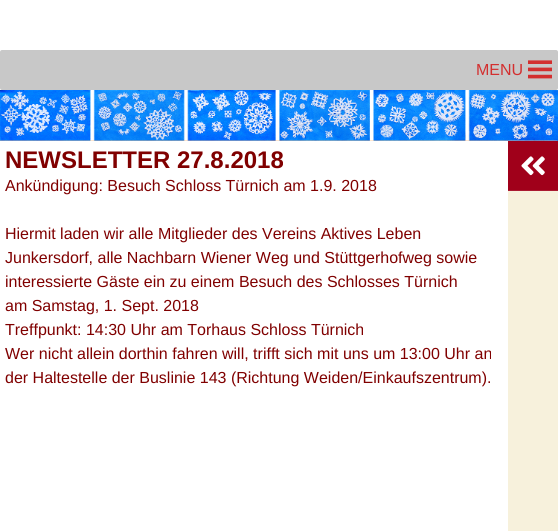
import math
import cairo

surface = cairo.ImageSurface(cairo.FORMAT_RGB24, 558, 531)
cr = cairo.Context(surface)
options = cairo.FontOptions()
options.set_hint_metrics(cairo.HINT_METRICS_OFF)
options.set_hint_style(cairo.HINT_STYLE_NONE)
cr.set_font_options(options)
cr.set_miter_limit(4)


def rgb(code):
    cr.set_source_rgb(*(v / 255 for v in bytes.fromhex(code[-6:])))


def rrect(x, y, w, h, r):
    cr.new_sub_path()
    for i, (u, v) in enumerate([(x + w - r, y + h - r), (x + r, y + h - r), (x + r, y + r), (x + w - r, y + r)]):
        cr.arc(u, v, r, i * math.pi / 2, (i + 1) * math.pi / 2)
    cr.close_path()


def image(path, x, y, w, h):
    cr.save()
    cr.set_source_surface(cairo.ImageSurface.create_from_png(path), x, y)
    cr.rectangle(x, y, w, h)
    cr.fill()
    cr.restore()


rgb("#ffffff")
cr.paint()
rgb("#c8c8c8")
rrect(0, 50, 558, 40, 2)
cr.fill()
image("img/1.png", 528, 60, 24, 19)
image("img/2.png", 0, 90, 558, 51)
rgb("#a0001a")
cr.rectangle(508, 141, 50, 49)
cr.fill()
rgb("#aa1a31")
cr.rectangle(508, 190, 50, 1)
cr.fill()
image("img/3.png", 521, 156, 24, 20)
rgb("#f7f1dc")
cr.rectangle(508, 191, 50, 340)
cr.fill()
cr.select_font_face("Liberation Sans")
cr.set_font_size(16)
rgb("#d32f2f")
cr.move_to(476, 75)
cr.show_text("MENU")
cr.select_font_face("Liberation Sans", cairo.FONT_SLANT_NORMAL, cairo.FONT_WEIGHT_BOLD)
cr.set_font_size(24)
rgb("#800000")
cr.move_to(5, 168)
cr.show_text("NEWSLETTER 27.8.2018")
cr.select_font_face("Liberation Sans")
cr.set_font_size(16)
for x, y, s in [
    (5, 191, "Ankündigung: Besuch Schloss Türnich am 1.9. 2018"),
    (5, 239, "Hiermit laden wir alle Mitglieder des Vereins Aktives Leben"),
    (5, 263, "Junkersdorf, alle Nachbarn Wiener Weg und Stüttgerhofweg sowie"),
    (5, 287, "interessierte Gäste ein zu einem Besuch des Schlosses Türnich"),
    (5, 311, "am Samstag, 1. Sept. 2018"),
    (5, 335, "Treffpunkt: 14:30 Uhr am Torhaus Schloss Türnich"),
    (5, 359, "Wer nicht allein dorthin fahren will, trifft sich mit uns um 13:00 Uhr an"),
    (5, 383, "der Haltestelle der Buslinie 143 (Richtung Weiden/Einkaufszentrum)."),
]:
    cr.move_to(x, y)
    cr.show_text(s)
surface.write_to_png("page.png")
